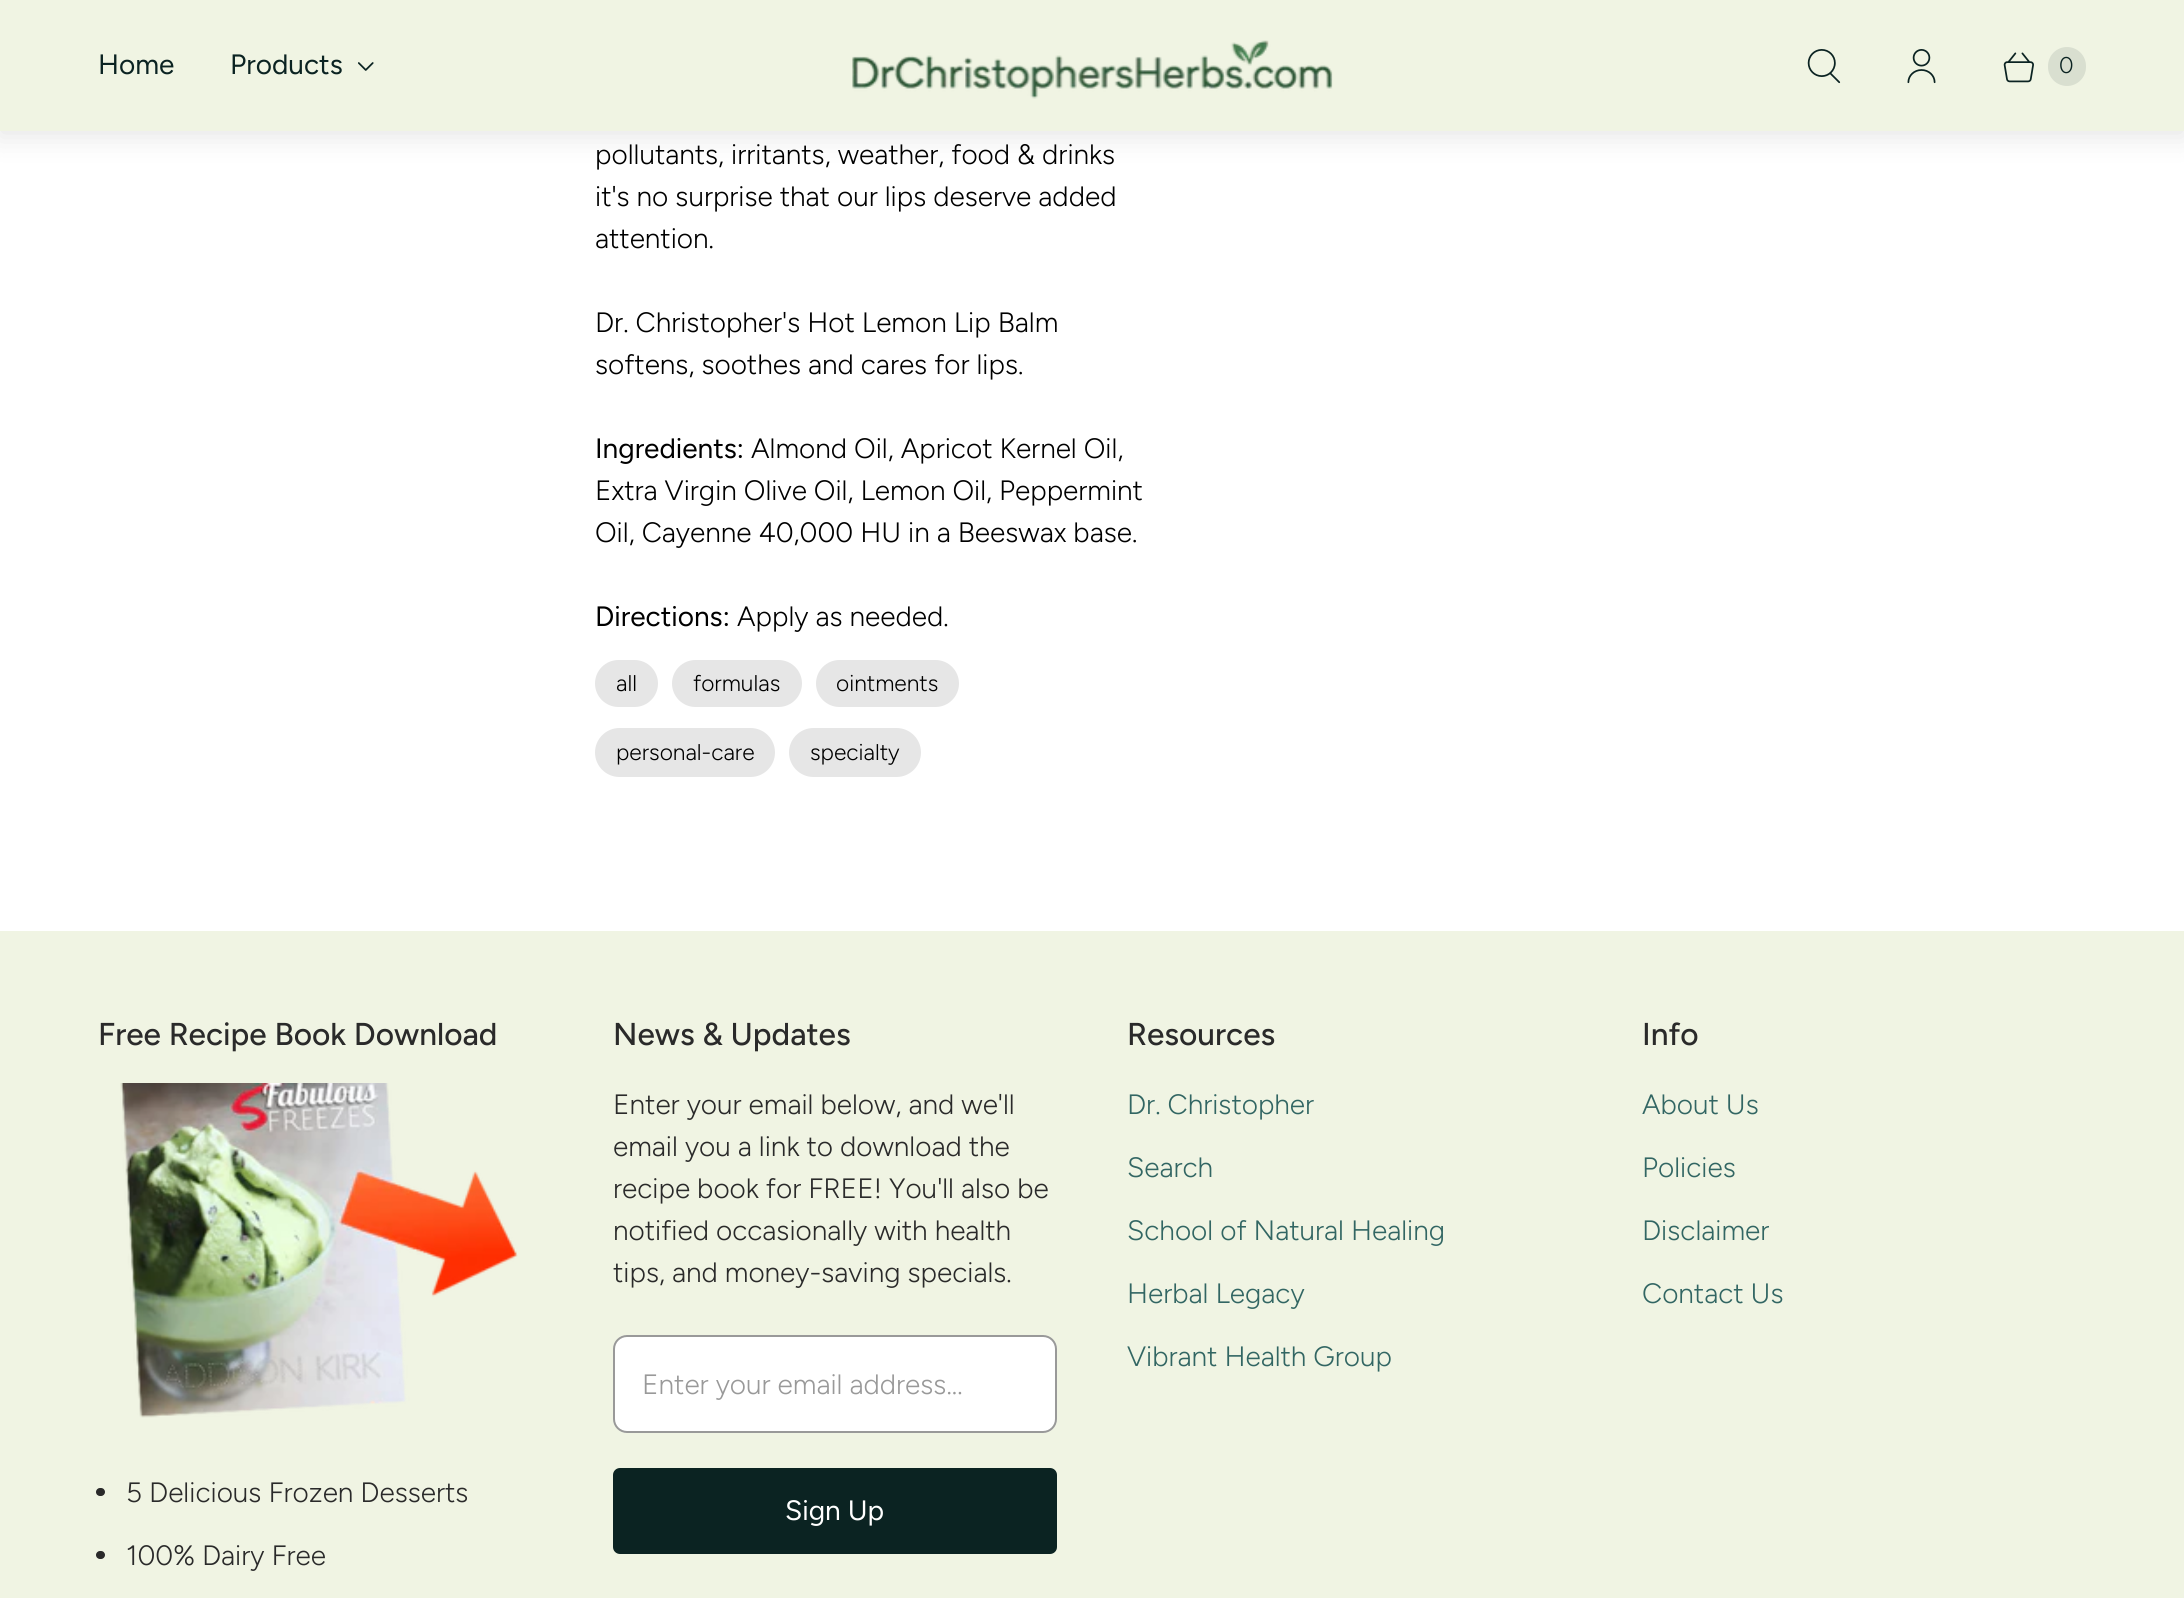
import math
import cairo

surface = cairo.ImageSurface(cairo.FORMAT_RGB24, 2184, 1598)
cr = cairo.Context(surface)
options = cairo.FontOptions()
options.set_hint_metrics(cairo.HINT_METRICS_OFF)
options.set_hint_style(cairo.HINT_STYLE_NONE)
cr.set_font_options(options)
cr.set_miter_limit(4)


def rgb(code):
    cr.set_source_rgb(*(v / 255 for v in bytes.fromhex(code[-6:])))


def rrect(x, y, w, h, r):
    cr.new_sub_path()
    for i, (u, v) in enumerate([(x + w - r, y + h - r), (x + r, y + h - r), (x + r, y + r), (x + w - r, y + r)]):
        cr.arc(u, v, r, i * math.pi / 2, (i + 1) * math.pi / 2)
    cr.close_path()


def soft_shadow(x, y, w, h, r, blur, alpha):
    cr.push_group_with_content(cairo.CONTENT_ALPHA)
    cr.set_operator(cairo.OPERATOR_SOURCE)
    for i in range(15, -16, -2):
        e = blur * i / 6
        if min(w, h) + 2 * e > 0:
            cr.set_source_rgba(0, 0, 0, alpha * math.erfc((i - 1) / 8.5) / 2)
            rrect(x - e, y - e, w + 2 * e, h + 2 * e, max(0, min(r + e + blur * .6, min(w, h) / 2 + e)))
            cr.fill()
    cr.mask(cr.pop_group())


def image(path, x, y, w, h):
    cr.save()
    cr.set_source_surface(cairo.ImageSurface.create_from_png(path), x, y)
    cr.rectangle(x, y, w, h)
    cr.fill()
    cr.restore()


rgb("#ffffff")
cr.paint()
rgb("#000000")
soft_shadow(-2, -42, 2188, 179, 0, 14, 0.1)
rgb("#f0f4e3")
cr.rectangle(0, 0, 2184, 131)
cr.fill()
image("img/1.png", 358, 62, 16, 9)
image("img/2.png", 852, 40, 481, 59)
image("img/3.png", 1807, 49, 34, 35)
image("img/4.png", 1907, 49, 29, 35)
image("img/5.png", 2003, 52, 31, 31)
rgb("#d9dfd0")
rrect(2048, 47, 38, 39, 19)
cr.fill()
rgb("#e6e6e6")
rrect(595, 660, 63, 47, 23.5)
cr.fill()
rrect(672, 660, 130, 47, 23.5)
cr.fill()
rrect(816, 660, 143, 47, 23.5)
cr.fill()
rrect(595, 728, 180, 49, 24.5)
cr.fill()
rrect(789, 728, 132, 49, 24.5)
cr.fill()
rgb("#f0f4e3")
cr.rectangle(0, 931, 2184, 667)
cr.fill()
image("img/6.png", 120, 1083, 398, 335)
rgb("#2a2a2a")
rrect(96, 1488, 9, 8, 4)
cr.fill()
rrect(96, 1551, 9, 8, 4)
cr.fill()
rgb("#ffffff")
rrect(613, 1335, 444, 98, 14)
cr.fill()
rrect(614, 1336, 442, 96, 13)
cr.set_source_rgba(0, 0, 0, 0.4)
cr.stroke()
rgb("#0b2322")
rrect(614, 1469, 442, 84, 6)
cr.fill_preserve()
cr.stroke()
cr.select_font_face("Figtree")
cr.set_font_size(28)
cr.move_to(98, 74)
cr.show_text("Home")
cr.move_to(230, 74)
cr.show_text("Products")
cr.select_font_face("Figtree Light")
cr.set_font_size(22.75)
cr.move_to(2059, 73)
cr.show_text("0")
cr.set_font_size(28)
rgb("#000000")
for x, y, s in [
    (595, 164, "pollutants, irritants, weather, food & drinks"),
    (595, 206, "it's no surprise that our lips deserve added"),
    (595, 248, "attention."),
    (595, 332, "Dr. Christopher's Hot Lemon Lip Balm"),
    (595, 374, "softens, soothes and cares for lips."),
]:
    cr.move_to(x, y)
    cr.show_text(s)
cr.select_font_face("Figtree")
cr.move_to(595, 458)
cr.show_text("Ingredients:")
cr.select_font_face("Figtree Light")
for x, y, s in [
    (751, 458, "Almond Oil, Apricot Kernel Oil,"),
    (595, 500, "Extra Virgin Olive Oil, Lemon Oil, Peppermint"),
    (595, 542, "Oil, Cayenne 40,000 HU in a Beeswax base."),
]:
    cr.move_to(x, y)
    cr.show_text(s)
cr.select_font_face("Figtree")
cr.move_to(595, 626)
cr.show_text("Directions:")
cr.select_font_face("Figtree Light")
cr.move_to(737, 626)
cr.show_text("Apply as needed.")
cr.set_font_size(22.75)
for x, y, s in [
    (616, 691, "all"),
    (693, 691, "formulas"),
    (836, 691, "ointments"),
    (616, 760, "personal-care"),
    (810, 760, "specialty"),
]:
    cr.move_to(x, y)
    cr.show_text(s)
cr.select_font_face("Figtree Medium")
cr.set_font_size(31.6)
rgb("#2a2a2a")
cr.move_to(98, 1045)
cr.show_text("Free Recipe Book Download")
cr.select_font_face("Figtree Light")
cr.set_font_size(28)
cr.move_to(126, 1502)
cr.show_text("5 Delicious Frozen Desserts")
cr.move_to(126, 1565)
cr.show_text("100% Dairy Free")
cr.select_font_face("Figtree Medium")
cr.set_font_size(31.6)
cr.move_to(613, 1045)
cr.show_text("News & Updates")
cr.select_font_face("Figtree Light")
cr.set_font_size(28)
for x, y, s in [
    (613, 1114, "Enter your email below, and we'll"),
    (613, 1156, "email you a link to download the"),
    (613, 1198, "recipe book for FREE! You'll also be"),
    (613, 1240, "notified occasionally with health"),
    (613, 1282, "tips, and money-saving specials."),
]:
    cr.move_to(x, y)
    cr.show_text(s)
rgb("#999999")
cr.move_to(642, 1394)
cr.show_text("Enter your email address...")
cr.select_font_face("Figtree")
rgb("#ffffff")
cr.move_to(785, 1520)
cr.show_text("Sign Up")
cr.select_font_face("Figtree Medium")
cr.set_font_size(31.6)
rgb("#2a2a2a")
cr.move_to(1127, 1045)
cr.show_text("Resources")
cr.select_font_face("Figtree Light")
cr.set_font_size(28)
rgb("#326663")
for x, y, s in [
    (1127, 1114, "Dr. Christopher"),
    (1127, 1177, "Search"),
    (1127, 1240, "School of Natural Healing"),
    (1127, 1303, "Herbal Legacy"),
    (1127, 1366, "Vibrant Health Group"),
]:
    cr.move_to(x, y)
    cr.show_text(s)
cr.select_font_face("Figtree Medium")
cr.set_font_size(31.6)
rgb("#2a2a2a")
cr.move_to(1642, 1045)
cr.show_text("Info")
cr.select_font_face("Figtree Light")
cr.set_font_size(28)
rgb("#326663")
for x, y, s in [
    (1642, 1114, "About Us"),
    (1642, 1177, "Policies"),
    (1642, 1240, "Disclaimer"),
    (1642, 1303, "Contact Us"),
]:
    cr.move_to(x, y)
    cr.show_text(s)
surface.write_to_png("page.png")
